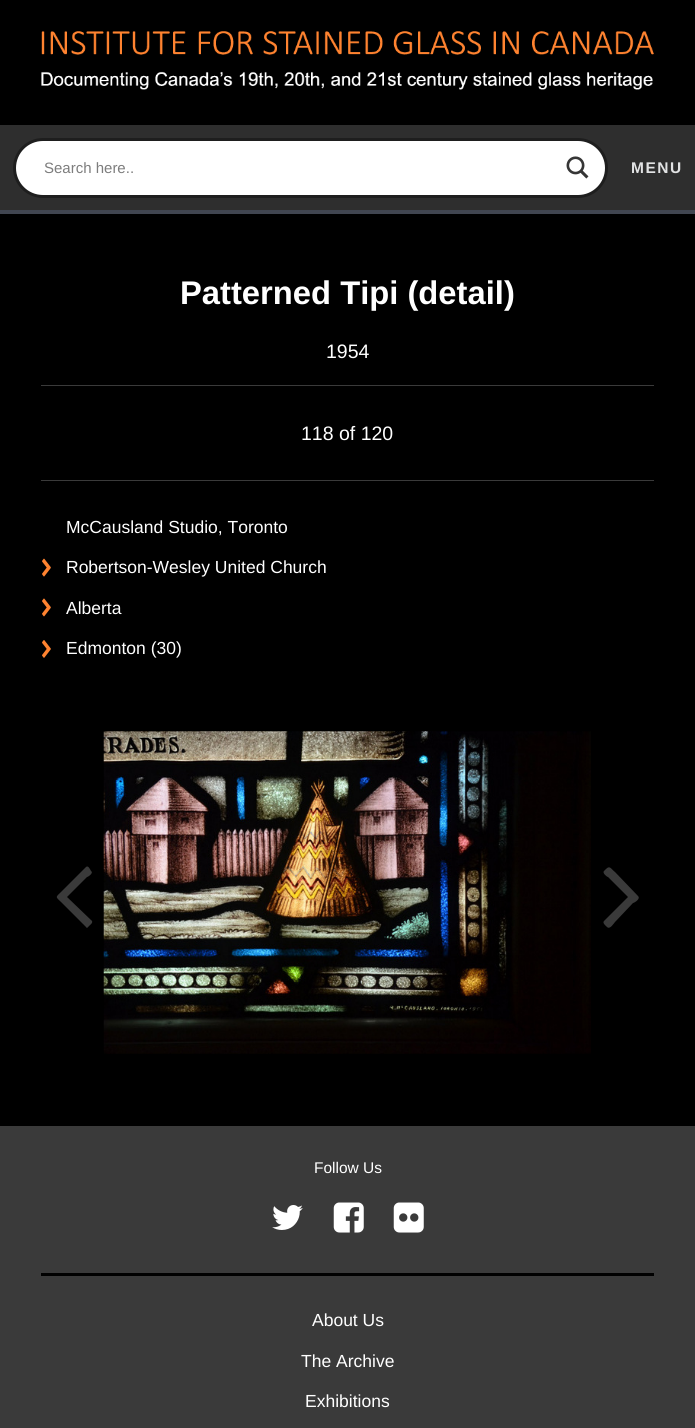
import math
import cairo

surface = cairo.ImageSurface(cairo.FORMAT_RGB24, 695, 1428)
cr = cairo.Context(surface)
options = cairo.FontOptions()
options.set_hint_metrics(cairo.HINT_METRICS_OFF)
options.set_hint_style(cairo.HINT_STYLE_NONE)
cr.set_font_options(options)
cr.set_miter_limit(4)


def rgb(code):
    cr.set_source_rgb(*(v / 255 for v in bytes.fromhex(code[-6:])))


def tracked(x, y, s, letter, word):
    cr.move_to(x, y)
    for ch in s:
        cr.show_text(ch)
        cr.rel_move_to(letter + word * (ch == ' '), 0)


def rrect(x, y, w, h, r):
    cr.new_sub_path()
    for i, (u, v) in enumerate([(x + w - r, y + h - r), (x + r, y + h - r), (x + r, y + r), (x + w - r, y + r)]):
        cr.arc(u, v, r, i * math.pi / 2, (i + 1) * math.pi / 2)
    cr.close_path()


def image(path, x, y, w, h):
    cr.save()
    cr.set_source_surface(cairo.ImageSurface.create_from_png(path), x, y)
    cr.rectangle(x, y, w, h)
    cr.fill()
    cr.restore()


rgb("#000000")
cr.paint()
image("img/1.png", 41, 31, 613, 59)
rgb("#2e2e2e")
cr.rectangle(0, 125, 695, 85)
cr.fill()
rgb("#414651")
cr.rectangle(0, 210, 695, 4)
cr.fill()
rgb("#ffffff")
rrect(14.5, 139.5, 592, 57, 28.5)
cr.fill_preserve()
rgb("#1e1e1e")
cr.set_line_width(3)
cr.stroke()
image("img/2.png", 566, 156, 23, 23)
rgb("#3a3a3a")
cr.rectangle(41, 385, 613, 1)
cr.fill()
cr.rectangle(41, 480, 613, 1)
cr.fill()
image("img/3.png", 42, 558, 9, 19)
image("img/4.png", 42, 598, 9, 19)
image("img/5.png", 42, 640, 9, 18)
cr.new_path()
cr.move_to(91, 871)
cr.curve_to(94, 873, 88, 877, 87, 877)
cr.line_to(67, 897)
cr.line_to(92, 921)
cr.curve_to(93, 923, 90, 925, 89, 926)
cr.curve_to(88, 927, 87, 929, 86, 927)
cr.line_to(62, 903)
cr.curve_to(55, 896, 55, 898, 62, 891)
cr.line_to(86, 867)
cr.curve_to(88, 865, 90, 869, 91, 871)
cr.close_path()
cr.fill()
image("img/6.png", 103, 731, 488, 323)
cr.new_path()
cr.move_to(638, 896)
cr.curve_to(641, 899, 634, 903, 633, 903)
cr.line_to(615, 922)
cr.curve_to(614, 923, 610, 930, 607, 927)
cr.curve_to(606, 926, 602, 923, 604, 921)
cr.line_to(628, 897)
cr.line_to(608, 877)
cr.curve_to(607, 877, 602, 873, 604, 871)
cr.line_to(606, 869)
cr.curve_to(610, 865, 611, 869, 615, 872)
cr.close_path()
cr.fill()
cr.rectangle(0, 1126, 695, 302)
cr.fill()
image("img/7.png", 272, 1205, 31, 25)
image("img/8.png", 333, 1202, 31, 31)
image("img/9.png", 393, 1202, 31, 31)
rgb("#000000")
cr.rectangle(41, 1273, 613, 3)
cr.fill()
cr.select_font_face("Liberation Sans")
cr.set_font_size(15)
rgb("#7d7d7d")
cr.move_to(44, 173)
cr.show_text("Search here..")
cr.select_font_face("Liberation Sans", cairo.FONT_SLANT_NORMAL, cairo.FONT_WEIGHT_BOLD)
cr.set_font_size(15.5)
rgb("#e2e3e4")
tracked(631, 173, "MENU", 1.5, 0)
cr.set_font_size(32.75)
rgb("#ffffff")
cr.move_to(180, 304)
cr.show_text("Patterned Tipi (detail)")
cr.select_font_face("Liberation Sans")
cr.set_font_size(19.5)
cr.move_to(326, 358)
cr.show_text("1954")
cr.move_to(301, 440)
cr.show_text("118 of 120")
cr.set_font_size(17.5)
for x, y, s in [
    (66, 533, "McCausland Studio, Toronto"),
    (66, 573, "Robertson-Wesley United Church"),
    (66, 614, "Alberta"),
    (66, 654, "Edmonton (30)"),
]:
    cr.move_to(x, y)
    cr.show_text(s)
cr.set_font_size(15.5)
cr.move_to(314, 1173)
cr.show_text("Follow Us")
cr.set_font_size(17.5)
for x, y, s in [
    (312, 1326, "About Us"),
    (301, 1367, "The Archive"),
    (305, 1407, "Exhibitions"),
]:
    cr.move_to(x, y)
    cr.show_text(s)
surface.write_to_png("page.png")
